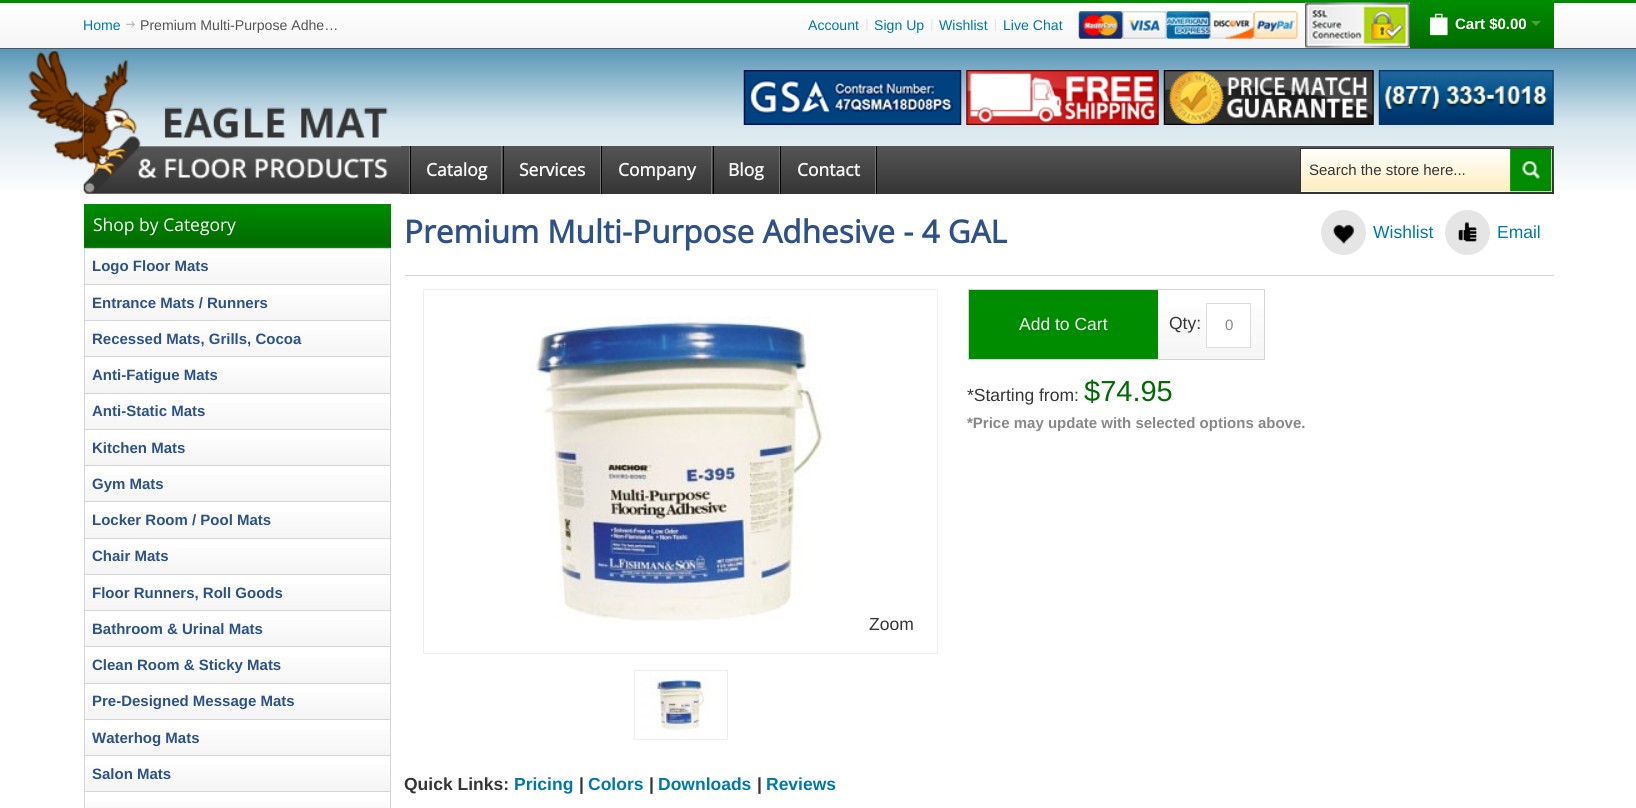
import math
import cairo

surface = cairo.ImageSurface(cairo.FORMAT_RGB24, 1636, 808)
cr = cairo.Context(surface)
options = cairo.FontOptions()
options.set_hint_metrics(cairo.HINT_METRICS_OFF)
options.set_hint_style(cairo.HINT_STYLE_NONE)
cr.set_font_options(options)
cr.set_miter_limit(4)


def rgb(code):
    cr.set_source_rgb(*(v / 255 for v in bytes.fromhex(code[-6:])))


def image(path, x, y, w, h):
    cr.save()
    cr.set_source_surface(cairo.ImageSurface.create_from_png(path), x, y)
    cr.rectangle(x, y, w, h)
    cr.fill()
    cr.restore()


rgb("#ffffff")
cr.paint()
rgb("#008c00")
cr.rectangle(0, 0, 1636, 3)
cr.fill()
gradient = cairo.LinearGradient(818, 2.5, 818, 48)
gradient.add_color_stop_rgba(0, 1, 1, 1, 1)
gradient.add_color_stop_rgba(1, 0.961, 0.961, 0.961, 1)
cr.set_source(gradient)
cr.rectangle(0, 14, 1636, 34)
cr.fill()
rgb("#555555")
cr.rectangle(0, 48, 1636, 1)
cr.fill()
image("img/1.png", 126, 21, 9, 7)
image("img/2.png", 866, 19, 2, 12)
image("img/2.png", 931, 19, 2, 12)
image("img/3.png", 995, 19, 1, 12)
image("img/4.png", 1078, 11, 220, 28)
image("img/5.png", 1305, 2, 105, 46)
gradient = cairo.LinearGradient(1482, 2.5, 1482, 48)
gradient.add_color_stop_rgba(0, 0, 0.549, 0, 1)
gradient.add_color_stop_rgba(1, 0, 0.42, 0, 1)
cr.set_source(gradient)
cr.rectangle(1410, 3, 144, 45)
cr.fill()
image("img/6.png", 1429, 13, 19, 23)
cr.set_source_rgba(1, 0.929, 0.745, 0.3)
cr.new_path()
cr.move_to(1531, 21)
cr.line_to(1541, 21)
cr.line_to(1536, 26)
cr.close_path()
cr.fill()
gradient = cairo.LinearGradient(818, 49, 818, 194)
gradient.add_color_stop_rgba(0, 0.345, 0.588, 0.718, 1)
gradient.add_color_stop_rgba(0.5, 0.835, 0.898, 0.929, 1)
gradient.add_color_stop_rgba(1, 1, 1, 1, 1)
cr.set_source(gradient)
cr.rectangle(0, 49, 1636, 141)
cr.fill()
image("img/8.png", 83, 59, 318, 135)
image("img/7.png", 28, 51, 56, 110)
image("img/9.png", 743, 70, 219, 55)
image("img/10.png", 966, 70, 193, 55)
image("img/11.png", 1163, 70, 211, 55)
image("img/12.png", 1378, 70, 176, 55)
gradient = cairo.LinearGradient(978, 146, 978, 194)
gradient.add_color_stop_rgba(0, 0.333, 0.333, 0.333, 1)
gradient.add_color_stop_rgba(1, 0.208, 0.208, 0.208, 1)
cr.set_source(gradient)
cr.rectangle(401, 146, 1153, 48)
cr.fill()
for x, y, w, h, color in [
    (876, 146, 1, 48, "#050505"),
    (409, 146, 1, 48, "#757575"),
    (501, 146, 1, 48, "#757575"),
    (410, 146, 1, 48, "#050505"),
    (600, 146, 1, 48, "#757575"),
    (503, 146, 1, 48, "#050505"),
    (711, 146, 1, 48, "#757575"),
    (601, 146, 1, 48, "#050505"),
    (779, 146, 1, 48, "#757575"),
    (713, 146, 1, 48, "#050505"),
    (875, 146, 1, 48, "#757575"),
    (780, 146, 1, 48, "#050505"),
]:
    rgb(color)
    cr.rectangle(x, y, w, h)
    cr.fill()
gradient = cairo.LinearGradient(1426, 149, 1426, 191)
gradient.add_color_stop_rgba(0, 1, 1, 1, 1)
gradient.add_color_stop_rgba(1, 1, 0.929, 0.745, 1)
cr.set_source(gradient)
cr.rectangle(1301, 149, 251, 42)
cr.fill()
gradient = cairo.LinearGradient(1426, 191, 1426, 234)
gradient.add_color_stop_rgba(0, 1, 1, 1, 1)
gradient.add_color_stop_rgba(1, 1, 0.929, 0.745, 1)
cr.set_source(gradient)
cr.rectangle(1300, 191, 253, 1)
cr.fill()
cr.rectangle(1300.5, 148.5, 252, 44)
rgb("#333333")
cr.set_line_width(1)
cr.stroke()
image("img/13.png", 1509, 148, 43, 44)
gradient = cairo.LinearGradient(238, 204, 238, 246)
gradient.add_color_stop_rgba(0, 0, 0.549, 0, 1)
gradient.add_color_stop_rgba(1, 0, 0.42, 0, 1)
cr.set_source(gradient)
cr.rectangle(84, 204, 307, 42)
cr.fill()
gradient = cairo.LinearGradient(238, 246, 238, 289)
gradient.add_color_stop_rgba(0, 0, 0.549, 0, 1)
gradient.add_color_stop_rgba(1, 0, 0.42, 0, 1)
cr.set_source(gradient)
cr.rectangle(84, 247, 307, 1)
cr.fill()
rgb("#006b00")
cr.rectangle(84, 246, 307, 1)
cr.fill()
cr.rectangle(84.5, 248.5, 306, 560)
rgb("#d5d5d5")
cr.stroke()
gradient = cairo.LinearGradient(238, 249, 238, 284)
gradient.add_color_stop_rgba(0, 1, 1, 1, 1)
gradient.add_color_stop_rgba(1, 0.961, 0.961, 0.961, 1)
cr.set_source(gradient)
cr.rectangle(85, 258, 305, 26)
cr.fill()
rgb("#d5d5d5")
cr.rectangle(85, 284, 305, 1)
cr.fill()
gradient = cairo.LinearGradient(238, 285, 238, 320)
gradient.add_color_stop_rgba(0, 1, 1, 1, 1)
gradient.add_color_stop_rgba(1, 0.961, 0.961, 0.961, 1)
cr.set_source(gradient)
cr.rectangle(85, 294, 305, 26)
cr.fill()
rgb("#d5d5d5")
cr.rectangle(85, 320, 305, 1)
cr.fill()
gradient = cairo.LinearGradient(238, 321, 238, 356)
gradient.add_color_stop_rgba(0, 1, 1, 1, 1)
gradient.add_color_stop_rgba(1, 0.961, 0.961, 0.961, 1)
cr.set_source(gradient)
cr.rectangle(85, 330, 305, 26)
cr.fill()
rgb("#d5d5d5")
cr.rectangle(85, 356, 305, 1)
cr.fill()
gradient = cairo.LinearGradient(238, 358, 238, 393)
gradient.add_color_stop_rgba(0, 1, 1, 1, 1)
gradient.add_color_stop_rgba(1, 0.961, 0.961, 0.961, 1)
cr.set_source(gradient)
cr.rectangle(85, 367, 305, 26)
cr.fill()
rgb("#d5d5d5")
cr.rectangle(85, 393, 305, 1)
cr.fill()
gradient = cairo.LinearGradient(238, 394, 238, 429)
gradient.add_color_stop_rgba(0, 1, 1, 1, 1)
gradient.add_color_stop_rgba(1, 0.961, 0.961, 0.961, 1)
cr.set_source(gradient)
cr.rectangle(85, 403, 305, 26)
cr.fill()
rgb("#d5d5d5")
cr.rectangle(85, 429, 305, 1)
cr.fill()
gradient = cairo.LinearGradient(238, 430, 238, 465)
gradient.add_color_stop_rgba(0, 1, 1, 1, 1)
gradient.add_color_stop_rgba(1, 0.961, 0.961, 0.961, 1)
cr.set_source(gradient)
cr.rectangle(85, 439, 305, 26)
cr.fill()
rgb("#d5d5d5")
cr.rectangle(85, 465, 305, 1)
cr.fill()
gradient = cairo.LinearGradient(238, 466, 238, 501)
gradient.add_color_stop_rgba(0, 1, 1, 1, 1)
gradient.add_color_stop_rgba(1, 0.961, 0.961, 0.961, 1)
cr.set_source(gradient)
cr.rectangle(85, 475, 305, 26)
cr.fill()
rgb("#d5d5d5")
cr.rectangle(85, 501, 305, 1)
cr.fill()
gradient = cairo.LinearGradient(238, 503, 238, 538)
gradient.add_color_stop_rgba(0, 1, 1, 1, 1)
gradient.add_color_stop_rgba(1, 0.961, 0.961, 0.961, 1)
cr.set_source(gradient)
cr.rectangle(85, 512, 305, 26)
cr.fill()
rgb("#d5d5d5")
cr.rectangle(85, 538, 305, 1)
cr.fill()
gradient = cairo.LinearGradient(238, 539, 238, 574)
gradient.add_color_stop_rgba(0, 1, 1, 1, 1)
gradient.add_color_stop_rgba(1, 0.961, 0.961, 0.961, 1)
cr.set_source(gradient)
cr.rectangle(85, 548, 305, 26)
cr.fill()
rgb("#d5d5d5")
cr.rectangle(85, 574, 305, 1)
cr.fill()
gradient = cairo.LinearGradient(238, 575, 238, 610)
gradient.add_color_stop_rgba(0, 1, 1, 1, 1)
gradient.add_color_stop_rgba(1, 0.961, 0.961, 0.961, 1)
cr.set_source(gradient)
cr.rectangle(85, 584, 305, 26)
cr.fill()
rgb("#d5d5d5")
cr.rectangle(85, 610, 305, 1)
cr.fill()
gradient = cairo.LinearGradient(238, 611, 238, 646)
gradient.add_color_stop_rgba(0, 1, 1, 1, 1)
gradient.add_color_stop_rgba(1, 0.961, 0.961, 0.961, 1)
cr.set_source(gradient)
cr.rectangle(85, 620, 305, 26)
cr.fill()
rgb("#d5d5d5")
cr.rectangle(85, 646, 305, 1)
cr.fill()
gradient = cairo.LinearGradient(238, 648, 238, 683)
gradient.add_color_stop_rgba(0, 1, 1, 1, 1)
gradient.add_color_stop_rgba(1, 0.961, 0.961, 0.961, 1)
cr.set_source(gradient)
cr.rectangle(85, 657, 305, 26)
cr.fill()
rgb("#d5d5d5")
cr.rectangle(85, 683, 305, 1)
cr.fill()
gradient = cairo.LinearGradient(238, 684, 238, 719)
gradient.add_color_stop_rgba(0, 1, 1, 1, 1)
gradient.add_color_stop_rgba(1, 0.961, 0.961, 0.961, 1)
cr.set_source(gradient)
cr.rectangle(85, 693, 305, 26)
cr.fill()
rgb("#d5d5d5")
cr.rectangle(85, 719, 305, 1)
cr.fill()
gradient = cairo.LinearGradient(238, 720, 238, 755)
gradient.add_color_stop_rgba(0, 1, 1, 1, 1)
gradient.add_color_stop_rgba(1, 0.961, 0.961, 0.961, 1)
cr.set_source(gradient)
cr.rectangle(85, 729, 305, 26)
cr.fill()
rgb("#d5d5d5")
cr.rectangle(85, 755, 305, 1)
cr.fill()
gradient = cairo.LinearGradient(238, 756, 238, 791)
gradient.add_color_stop_rgba(0, 1, 1, 1, 1)
gradient.add_color_stop_rgba(1, 0.961, 0.961, 0.961, 1)
cr.set_source(gradient)
cr.rectangle(85, 765, 305, 26)
cr.fill()
rgb("#d5d5d5")
cr.rectangle(85, 791, 305, 1)
cr.fill()
gradient = cairo.LinearGradient(238, 793, 238, 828)
gradient.add_color_stop_rgba(0, 1, 1, 1, 1)
gradient.add_color_stop_rgba(1, 0.961, 0.961, 0.961, 1)
cr.set_source(gradient)
cr.rectangle(85, 802, 305, 6)
cr.fill()
rgb("#d5d5d5")
cr.rectangle(405, 275, 1149, 1)
cr.fill()
rgb("#e5e5e5")
cr.arc(1343.5, 232.5, 22.5, 0, 2 * math.pi)
cr.fill()
image("img/14.png", 1333, 224, 21, 20)
cr.arc(1467.5, 232.5, 22.5, 0, 2 * math.pi)
cr.fill()
image("img/15.png", 1458, 222, 19, 20)
gradient = cairo.LinearGradient(1116, 290, 1116, 359)
gradient.add_color_stop_rgba(0, 1, 1, 1, 1)
gradient.add_color_stop_rgba(1, 0.961, 0.961, 0.961, 1)
cr.set_source(gradient)
cr.rectangle(1158, 307, 106, 52)
cr.fill()
cr.rectangle(968.5, 289.5, 296, 70)
rgb("#d5d5d5")
cr.stroke()
rgb("#008c00")
cr.rectangle(969, 290, 189, 69)
cr.fill()
rgb("#ffffff")
cr.rectangle(1207, 307, 43, 40)
cr.fill()
cr.rectangle(1206.5, 303.5, 44, 44)
rgb("#dddddd")
cr.stroke()
cr.rectangle(423.5, 289.5, 514, 364)
rgb("#eeeeee")
cr.stroke()
image("img/16.png", 530, 316, 300, 308)
cr.rectangle(634.5, 670.5, 93, 69)
cr.stroke()
image("img/17.png", 640, 676, 70, 57)
cr.select_font_face("Liberation Sans")
cr.set_font_size(14.1)
rgb("#0078ac")
cr.move_to(83, 30)
cr.show_text("Home")
rgb("#555555")
cr.move_to(140, 30)
cr.show_text("Premium Multi-Purpose Adhe…")
rgb("#0078ac")
for x, y, s in [
    (808, 30, "Account"),
    (874, 30, "Sign Up"),
    (939, 30, "Wishlist"),
    (1003, 30, "Live Chat"),
]:
    cr.move_to(x, y)
    cr.show_text(s)
cr.select_font_face("Liberation Sans", cairo.FONT_SLANT_NORMAL, cairo.FONT_WEIGHT_BOLD)
cr.set_font_size(15)
rgb("#ffffff")
cr.move_to(1455, 29)
cr.show_text("Cart $0.00")
cr.select_font_face("Open Sans", cairo.FONT_SLANT_NORMAL, cairo.FONT_WEIGHT_BOLD)
cr.set_font_size(17.5)
rgb("#f5f5f5")
for x, y, s in [
    (426, 176, "Catalog"),
    (519, 176, "Services"),
    (618, 176, "Company"),
    (728, 176, "Blog"),
    (797, 176, "Contact"),
]:
    cr.move_to(x, y)
    cr.show_text(s)
cr.select_font_face("Liberation Sans")
cr.set_font_size(15)
rgb("#353535")
cr.move_to(1309, 175)
cr.show_text("Search the store here...")
cr.select_font_face("Open Sans")
cr.set_font_size(17.5)
rgb("#ffffff")
cr.move_to(93, 231)
cr.show_text("Shop by Category")
cr.select_font_face("Liberation Sans", cairo.FONT_SLANT_NORMAL, cairo.FONT_WEIGHT_BOLD)
cr.set_font_size(15)
rgb("#2e5288")
for x, y, s in [
    (92, 271, "Logo Floor Mats"),
    (92, 308, "Entrance Mats / Runners"),
    (92, 344, "Recessed Mats, Grills, Cocoa"),
    (92, 380, "Anti-Fatigue Mats"),
    (92, 416, "Anti-Static Mats"),
    (92, 453, "Kitchen Mats"),
    (92, 489, "Gym Mats"),
    (92, 525, "Locker Room / Pool Mats"),
    (92, 561, "Chair Mats"),
    (92, 598, "Floor Runners, Roll Goods"),
    (92, 634, "Bathroom & Urinal Mats"),
    (92, 670, "Clean Room & Sticky Mats"),
    (92, 706, "Pre-Designed Message Mats"),
    (92, 743, "Waterhog Mats"),
    (92, 779, "Salon Mats"),
]:
    cr.move_to(x, y)
    cr.show_text(s)
cr.select_font_face("Open Sans", cairo.FONT_SLANT_NORMAL, cairo.FONT_WEIGHT_BOLD)
cr.set_font_size(31.5)
cr.move_to(404, 243)
cr.show_text("Premium Multi-Purpose Adhesive - 4 GAL")
cr.select_font_face("Liberation Sans")
cr.set_font_size(17.5)
rgb("#0078ac")
cr.move_to(1373, 238)
cr.show_text("Wishlist")
cr.move_to(1497, 238)
cr.show_text("Email")
rgb("#f5f5f5")
cr.move_to(1019, 330)
cr.show_text("Add to Cart")
rgb("#353535")
cr.move_to(1169, 329)
cr.show_text("Qty:")
cr.set_font_size(15)
rgb("#888888")
cr.move_to(1225, 330)
cr.show_text("0")
cr.set_font_size(17.5)
rgb("#353535")
cr.move_to(967, 401)
cr.show_text("*Starting from:")
cr.set_font_size(29)
rgb("#006b00")
cr.move_to(1084, 401)
cr.show_text("$74.95")
cr.select_font_face("Liberation Sans", cairo.FONT_SLANT_NORMAL, cairo.FONT_WEIGHT_BOLD)
cr.set_font_size(15)
rgb("#888888")
cr.move_to(967, 428)
cr.show_text("*Price may update with selected options above.")
cr.select_font_face("Liberation Sans")
cr.set_font_size(17.5)
rgb("#353535")
cr.move_to(869, 630)
cr.show_text("Zoom")
cr.select_font_face("Liberation Sans", cairo.FONT_SLANT_NORMAL, cairo.FONT_WEIGHT_BOLD)
cr.move_to(404, 790)
cr.show_text("Quick Links:")
rgb("#0078ac")
cr.move_to(514, 790)
cr.show_text("Pricing")
rgb("#353535")
cr.move_to(579, 790)
cr.show_text("|")
rgb("#0078ac")
cr.move_to(588, 790)
cr.show_text("Colors")
rgb("#353535")
cr.move_to(649, 790)
cr.show_text("|")
rgb("#0078ac")
cr.move_to(658, 790)
cr.show_text("Downloads")
rgb("#353535")
cr.move_to(757, 790)
cr.show_text("|")
rgb("#0078ac")
cr.move_to(766, 790)
cr.show_text("Reviews")
surface.write_to_png("page.png")
